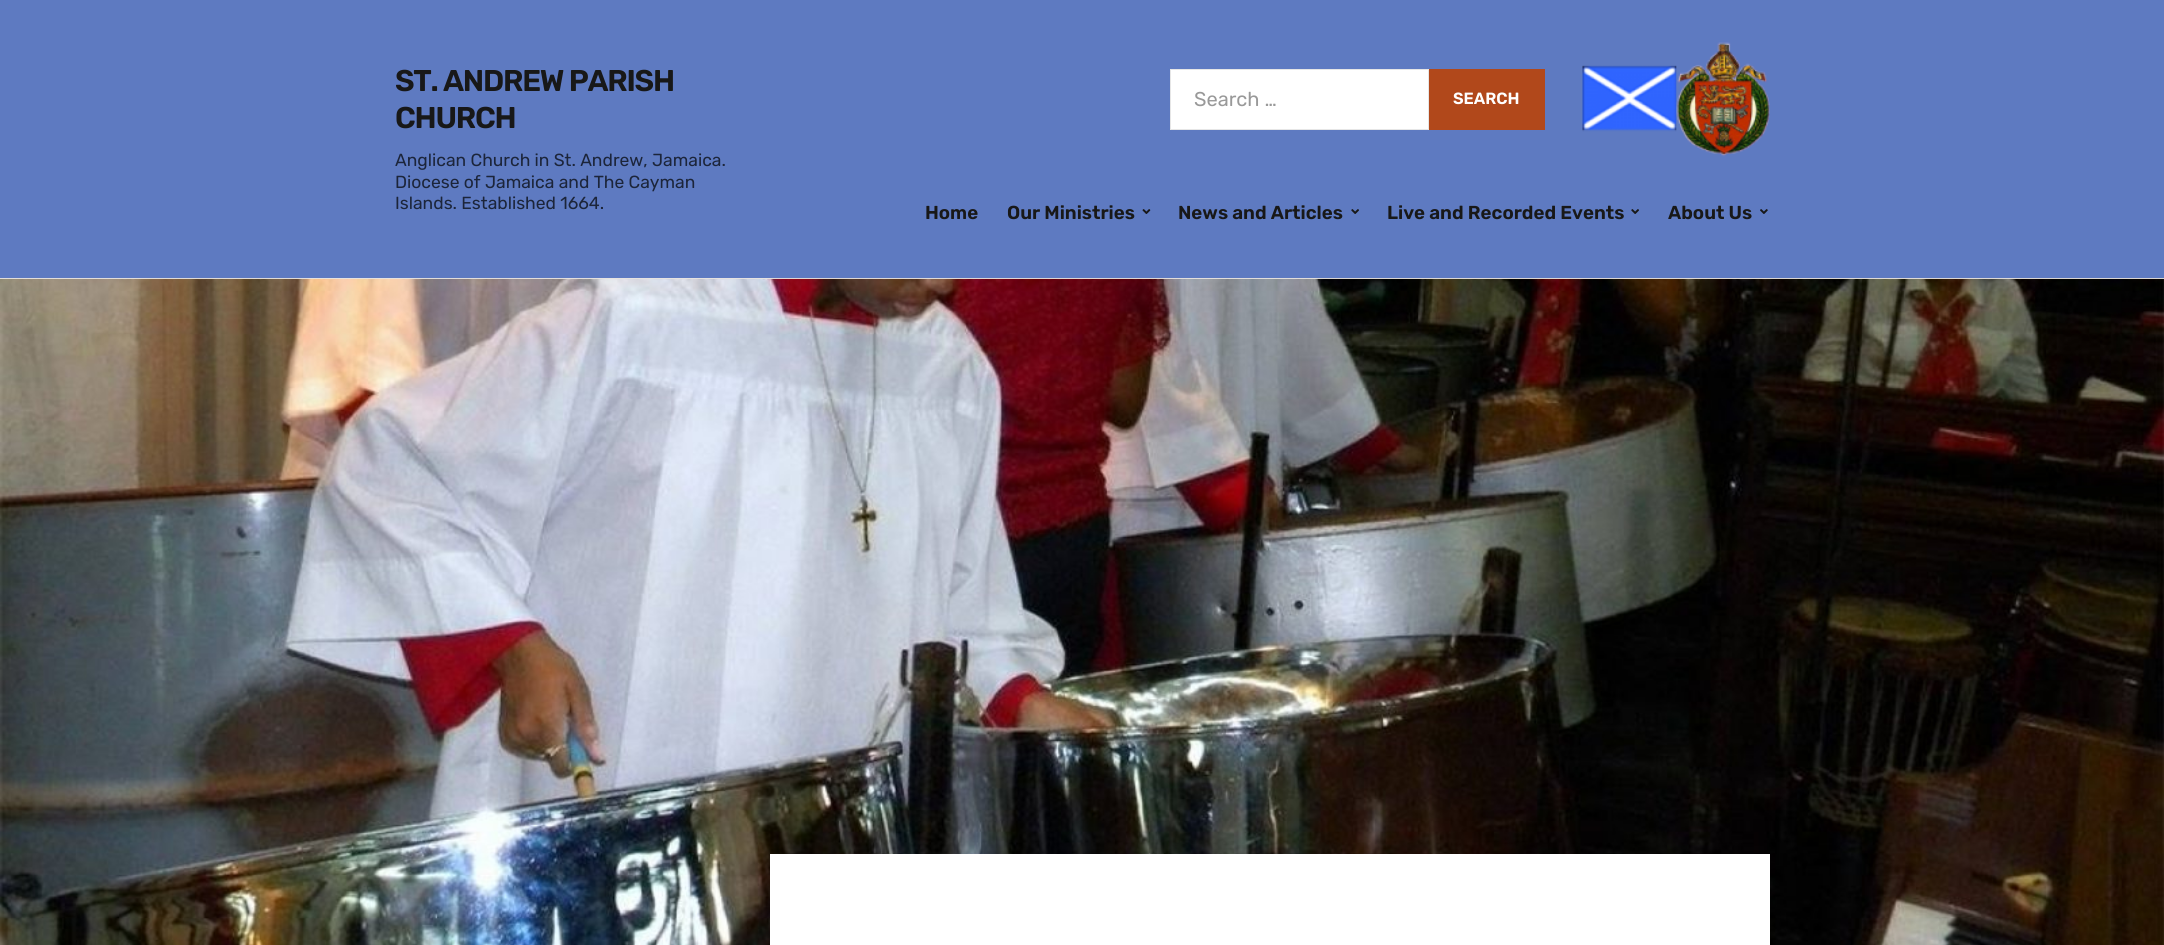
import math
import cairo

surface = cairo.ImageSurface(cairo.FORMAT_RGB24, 2164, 945)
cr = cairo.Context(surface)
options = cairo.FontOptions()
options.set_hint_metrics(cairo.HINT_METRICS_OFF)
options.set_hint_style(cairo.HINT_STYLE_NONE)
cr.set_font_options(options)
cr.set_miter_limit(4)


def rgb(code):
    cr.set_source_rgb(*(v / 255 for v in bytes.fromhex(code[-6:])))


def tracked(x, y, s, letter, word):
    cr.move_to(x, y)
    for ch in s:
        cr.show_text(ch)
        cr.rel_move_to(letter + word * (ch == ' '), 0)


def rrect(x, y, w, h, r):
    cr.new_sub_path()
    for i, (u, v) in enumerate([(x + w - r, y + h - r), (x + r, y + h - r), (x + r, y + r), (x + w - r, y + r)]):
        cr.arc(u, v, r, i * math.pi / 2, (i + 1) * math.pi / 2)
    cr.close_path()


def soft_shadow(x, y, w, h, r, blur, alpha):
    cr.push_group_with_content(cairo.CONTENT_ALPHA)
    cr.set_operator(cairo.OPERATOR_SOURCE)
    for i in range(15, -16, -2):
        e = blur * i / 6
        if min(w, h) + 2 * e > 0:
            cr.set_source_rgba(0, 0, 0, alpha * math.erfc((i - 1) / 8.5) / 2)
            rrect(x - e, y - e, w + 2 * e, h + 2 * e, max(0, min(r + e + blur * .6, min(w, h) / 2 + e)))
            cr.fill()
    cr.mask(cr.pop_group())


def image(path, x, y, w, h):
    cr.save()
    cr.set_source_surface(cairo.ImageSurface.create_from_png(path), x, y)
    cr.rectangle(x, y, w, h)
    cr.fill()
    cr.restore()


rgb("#5e7ac1")
cr.paint()
rgb("#e7e3e0")
cr.rectangle(0, 278, 2164, 1)
cr.fill()
rgb("#ffffff")
cr.rectangle(1170.5, 69.5, 258, 60)
cr.fill_preserve()
rgb("#e6e6e6")
cr.set_line_width(1)
cr.stroke()
rgb("#b1481b")
cr.rectangle(1429, 69, 116, 61)
cr.fill()
image("img/1.png", 1582, 42, 188, 115)
image("img/2.png", 1142, 209, 9, 5)
image("img/3.png", 1351, 209, 8, 5)
image("img/3.png", 1631, 209, 8, 5)
image("img/4.png", 1760, 209, 8, 5)
image("img/5.png", 0, 278, 2164, 667)
rgb("#000000")
soft_shadow(770, 854, 1000, 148, 0, 19, 0.06)
rgb("#ffffff")
cr.rectangle(770, 854, 1000, 91)
cr.fill()
cr.select_font_face("Rubik SemiBold")
cr.set_font_size(30)
rgb("#181818")
tracked(395, 91, "ST. ANDREW PARISH", -1.25, 0)
tracked(395, 128, "CHURCH", -1.25, 0)
cr.select_font_face("Rubik")
cr.set_font_size(17.5)
rgb("#1c253a")
for x, y, s in [
    (395, 166, "Anglican Church in St. Andrew, Jamaica."),
    (395, 188, "Diocese of Jamaica and The Cayman"),
    (395, 209, "Islands. Established 1664."),
]:
    cr.move_to(x, y)
    cr.show_text(s)
cr.set_font_size(20)
rgb("#999999")
cr.move_to(1194, 106)
cr.show_text("Search …")
cr.select_font_face("Rubik SemiBold")
cr.set_font_size(16.25)
rgb("#ffffff")
cr.move_to(1453, 104)
cr.show_text("SEARCH")
cr.set_font_size(18.75)
rgb("#181818")
for x, y, s in [
    (925, 219, "Home"),
    (1007, 219, "Our Ministries"),
    (1178, 219, "News and Articles"),
    (1387, 219, "Live and Recorded Events"),
    (1668, 219, "About Us"),
]:
    cr.move_to(x, y)
    cr.show_text(s)
surface.write_to_png("page.png")
